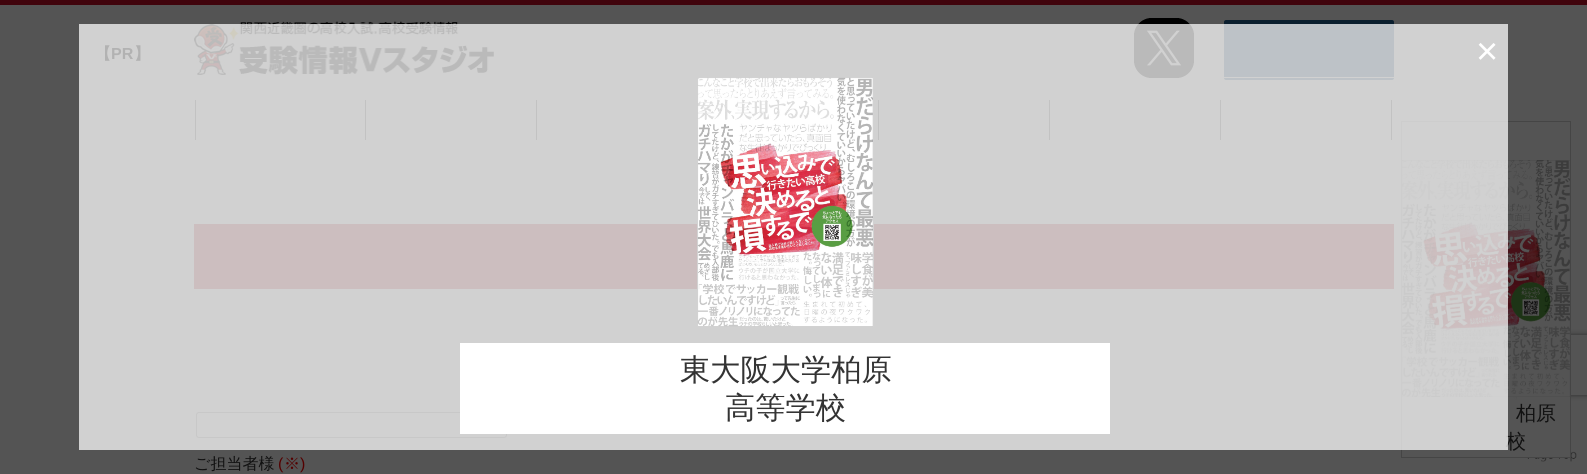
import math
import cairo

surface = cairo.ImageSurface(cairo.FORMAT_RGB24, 1587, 474)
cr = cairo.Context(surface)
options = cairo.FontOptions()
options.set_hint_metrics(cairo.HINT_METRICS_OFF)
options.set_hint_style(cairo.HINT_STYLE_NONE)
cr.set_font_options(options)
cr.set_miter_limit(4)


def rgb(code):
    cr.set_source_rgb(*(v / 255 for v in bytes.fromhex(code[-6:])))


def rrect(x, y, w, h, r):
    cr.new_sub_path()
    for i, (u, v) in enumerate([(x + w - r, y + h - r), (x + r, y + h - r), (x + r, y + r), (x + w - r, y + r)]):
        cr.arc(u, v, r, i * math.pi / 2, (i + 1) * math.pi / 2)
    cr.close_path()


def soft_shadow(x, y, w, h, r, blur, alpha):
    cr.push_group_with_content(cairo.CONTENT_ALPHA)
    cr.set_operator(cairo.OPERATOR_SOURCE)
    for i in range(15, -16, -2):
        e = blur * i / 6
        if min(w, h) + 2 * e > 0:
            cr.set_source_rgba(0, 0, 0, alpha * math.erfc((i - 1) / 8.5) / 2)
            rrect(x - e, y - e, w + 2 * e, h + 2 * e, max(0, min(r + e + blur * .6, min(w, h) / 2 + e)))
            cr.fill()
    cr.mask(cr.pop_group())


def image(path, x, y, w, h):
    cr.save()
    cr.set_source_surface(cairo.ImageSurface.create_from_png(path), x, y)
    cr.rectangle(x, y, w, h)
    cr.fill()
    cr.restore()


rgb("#545454")
cr.paint()
rgb("#40040c")
cr.rectangle(0, 0, 1587, 5)
cr.fill()
cr.save()
cr.set_fill_rule(cairo.FILL_RULE_EVEN_ODD)
cr.new_path()
cr.move_to(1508, 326)
cr.line_to(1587, 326)
cr.line_to(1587, 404)
cr.line_to(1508, 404)
cr.close_path()
cr.move_to(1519, 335)
cr.line_to(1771, 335)
cr.curve_to(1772, 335, 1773, 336, 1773, 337)
cr.line_to(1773, 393)
cr.curve_to(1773, 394, 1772, 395, 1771, 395)
cr.line_to(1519, 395)
cr.curve_to(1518, 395, 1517, 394, 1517, 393)
cr.line_to(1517, 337)
cr.curve_to(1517, 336, 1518, 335, 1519, 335)
cr.close_path()
cr.clip()
rgb("#2a2a2a")
soft_shadow(1517, 335, 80, 60, 2, 2.5, 1)
cr.restore()
cr.set_source_rgba(0.329, 0.329, 0.329, 0.73)
cr.rectangle(1514, 332, 56, 65)
cr.fill()
image("img/5.png", 1527, 451, 50, 11)
cr.rectangle(1401.5, 121.5, 169, 336)
rgb("#454545")
cr.set_line_width(1)
cr.stroke()
image("img/2.png", 1402, 160, 168, 237)
rgb("#545454")
cr.rectangle(1517, 397, 53, 60)
cr.fill()
image("img/3.png", 194, 21, 300, 54)
image("img/4.png", 1134, 18, 60, 60)
rgb("#0b1f2f")
rrect(1224, 20, 170, 60, 2)
cr.fill()
for x, y, w, h, color in [
    (1224, 77, 170, 1, "#545454"),
    (365, 100, 1, 40, "#1d1d1d"),
    (195, 100, 1, 40, "#1d1d1d"),
    (536, 100, 1, 40, "#1d1d1d"),
    (878, 100, 1, 40, "#1d1d1d"),
    (1049, 100, 1, 40, "#1d1d1d"),
    (1220, 100, 1, 40, "#1d1d1d"),
    (1391, 100, 1, 40, "#1d1d1d"),
    (194, 224, 1200, 65, "#421014"),
]:
    rgb(color)
    cr.rectangle(x, y, w, h)
    cr.fill()
rrect(196.5, 412.5, 310, 25, 2.5)
rgb("#323232")
cr.stroke()
cr.select_font_face("WenQuanYi Zen Hei Medium")
cr.set_font_size(20)
rgb("#111111")
cr.move_to(1516, 420)
cr.show_text("柏原")
cr.move_to(1506, 448)
cr.show_text("校")
cr.set_source_rgba(1, 1, 1, 0.73)
cr.rectangle(79, 24, 1429, 426)
cr.fill()
cr.select_font_face("Liberation Sans")
cr.set_font_size(38)
rgb("#ffffff")
cr.move_to(1476, 64)
cr.show_text("×")
cr.rectangle(697.5, 77.5, 176, 249)
rgb("#d2d2d2")
cr.stroke()
image("img/1.png", 697, 77, 176, 250)
rgb("#ffffff")
cr.rectangle(460, 343, 650, 91)
cr.fill()
cr.select_font_face("WenQuanYi Zen Hei Medium")
cr.set_font_size(30.25)
rgb("#333333")
cr.move_to(725, 418)
cr.show_text("高等学校")
cr.move_to(680, 380)
cr.show_text("東大阪大学柏原")
cr.select_font_face("WenQuanYi Zen Hei", cairo.FONT_SLANT_NORMAL, cairo.FONT_WEIGHT_BOLD)
cr.set_font_size(16)
rgb("#b2b2b2")
cr.move_to(134, 59)
cr.show_text("】")
cr.select_font_face("Liberation Sans", cairo.FONT_SLANT_NORMAL, cairo.FONT_WEIGHT_BOLD)
cr.move_to(111, 59)
cr.show_text("PR")
cr.select_font_face("WenQuanYi Zen Hei", cairo.FONT_SLANT_NORMAL, cairo.FONT_WEIGHT_BOLD)
cr.move_to(95, 59)
cr.show_text("【")
cr.select_font_face("WenQuanYi Zen Hei Medium")
rgb("#111111")
cr.move_to(194, 469)
cr.show_text("ご担当者様")
cr.select_font_face("Liberation Sans")
rgb("#540000")
cr.move_to(278, 469)
cr.show_text("(")
cr.select_font_face("WenQuanYi Zen Hei Medium")
cr.move_to(284, 469)
cr.show_text("※")
cr.select_font_face("Liberation Sans")
cr.move_to(300, 469)
cr.show_text(")")
surface.write_to_png("page.png")
